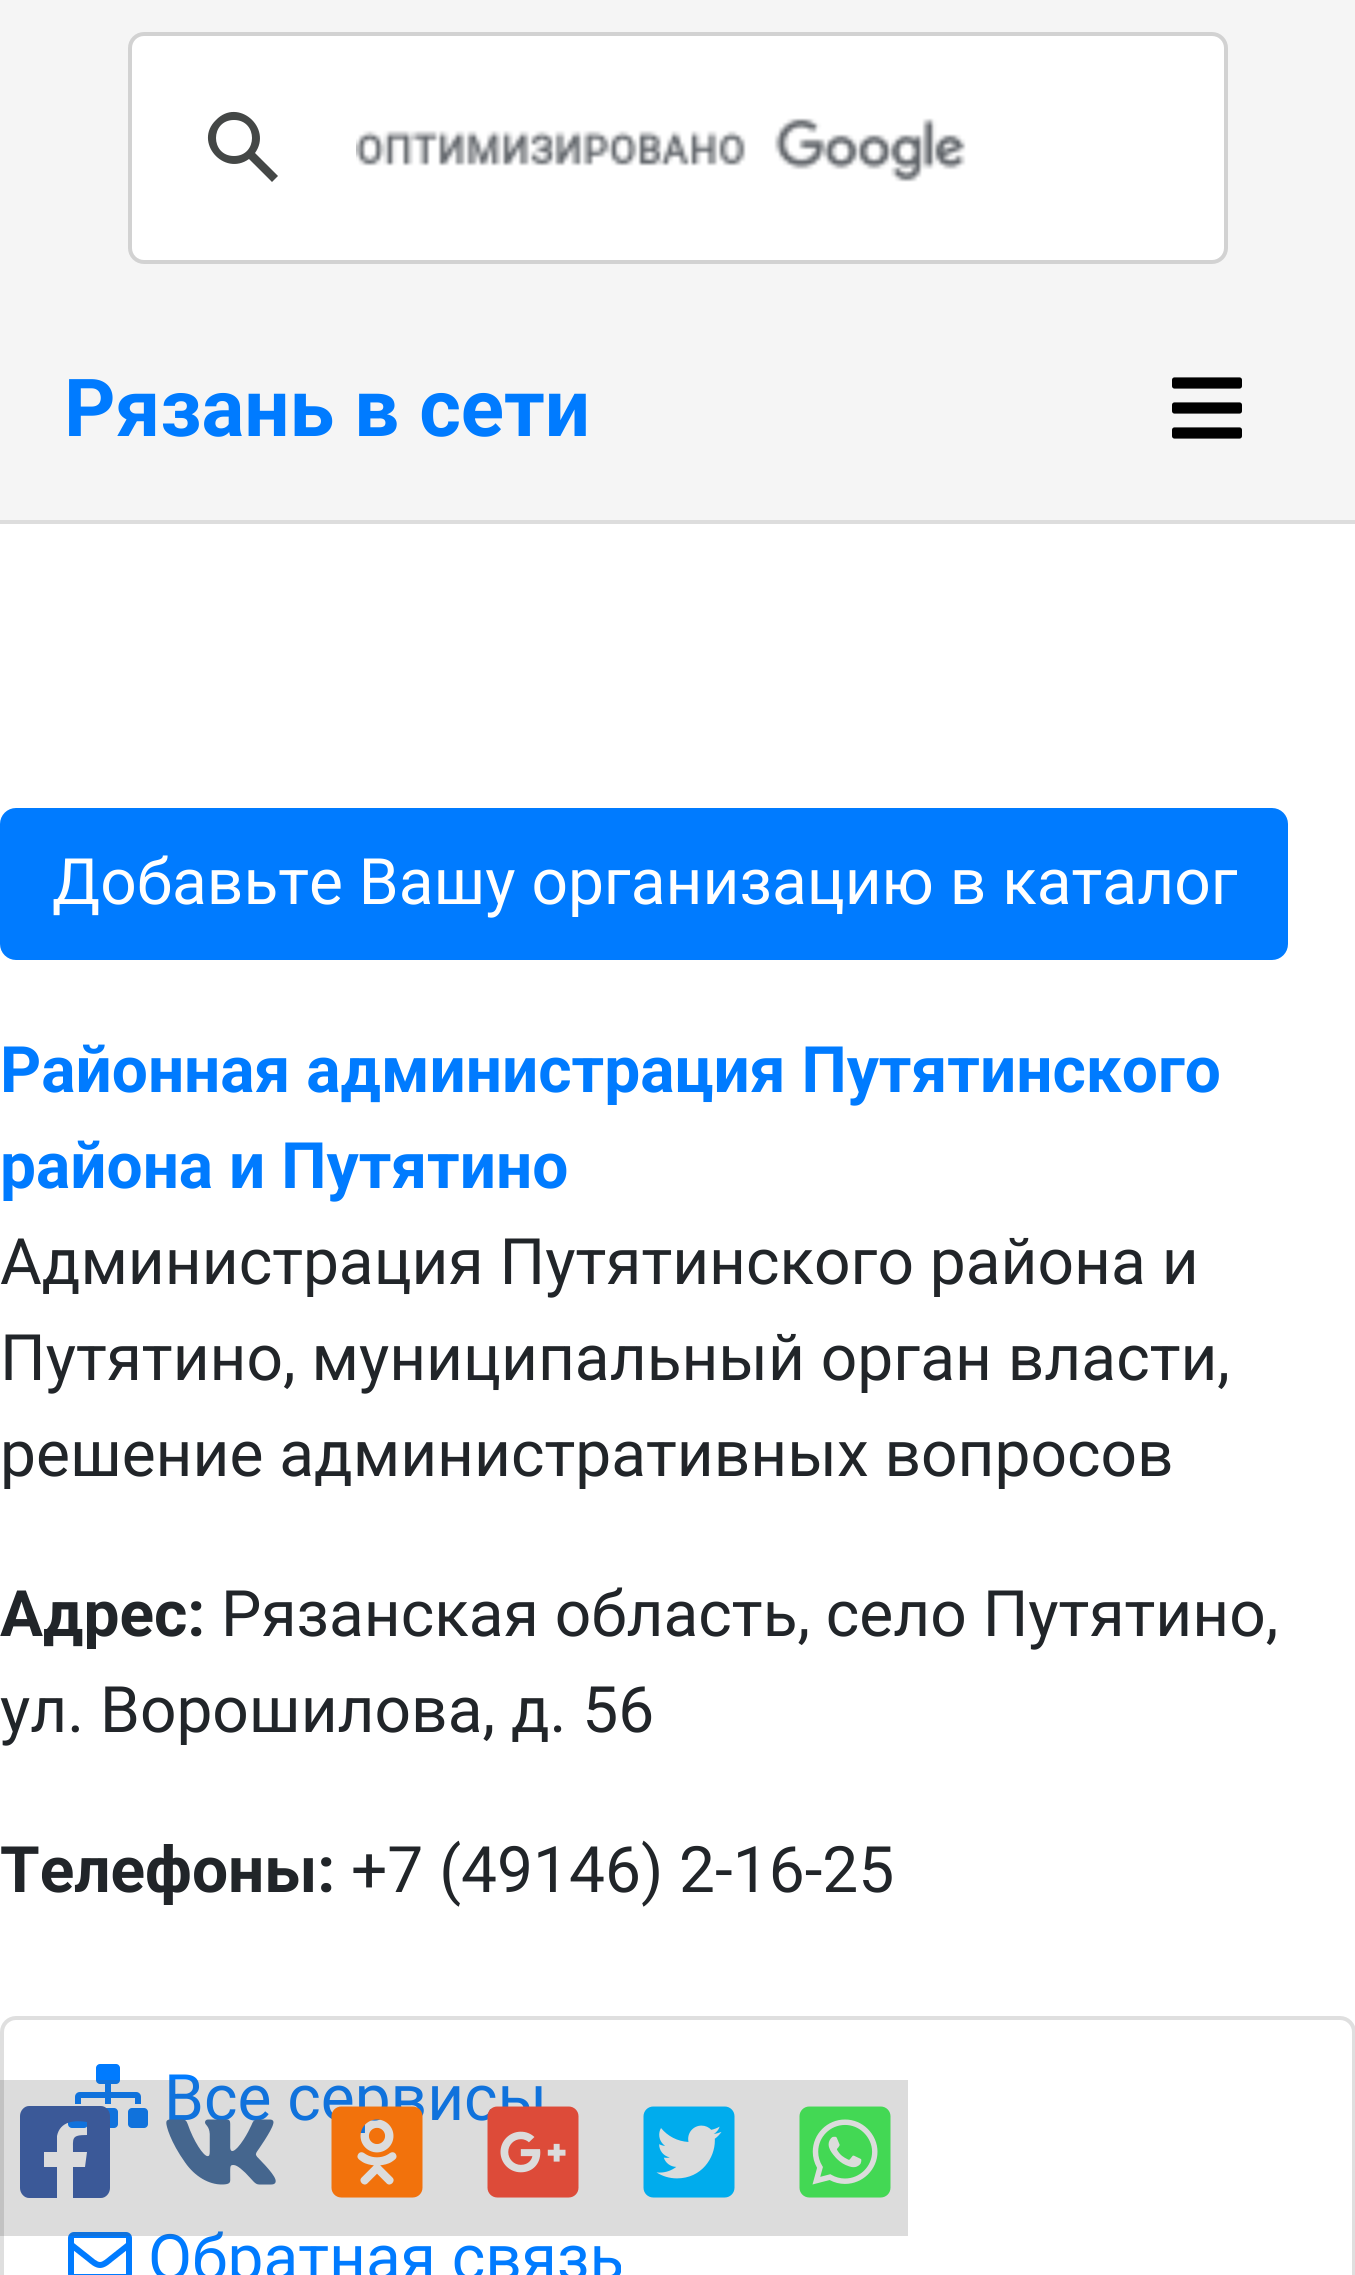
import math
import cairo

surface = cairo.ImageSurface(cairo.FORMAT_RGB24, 1355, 2275)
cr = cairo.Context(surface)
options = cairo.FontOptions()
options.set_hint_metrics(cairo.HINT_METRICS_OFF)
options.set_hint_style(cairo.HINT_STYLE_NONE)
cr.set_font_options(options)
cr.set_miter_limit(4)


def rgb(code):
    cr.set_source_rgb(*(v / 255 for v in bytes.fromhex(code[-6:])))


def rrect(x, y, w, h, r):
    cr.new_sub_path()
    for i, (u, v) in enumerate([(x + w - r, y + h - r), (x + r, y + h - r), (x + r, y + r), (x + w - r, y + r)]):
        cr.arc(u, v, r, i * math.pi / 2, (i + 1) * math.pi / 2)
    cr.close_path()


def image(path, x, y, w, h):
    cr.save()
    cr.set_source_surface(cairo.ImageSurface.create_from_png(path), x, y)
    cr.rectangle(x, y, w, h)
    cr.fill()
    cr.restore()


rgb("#ffffff")
cr.paint()
rgb("#f5f5f5")
cr.rectangle(0, 0, 1355, 520)
cr.fill()
rgb("#dddddd")
cr.rectangle(0, 520, 1355, 4)
cr.fill()
rgb("#ffffff")
rrect(130, 34, 1096, 228, 14)
cr.fill_preserve()
rgb("#d2d2d2")
cr.set_line_width(4)
cr.stroke()
rgb("#444746")
cr.set_fill_rule(cairo.FILL_RULE_EVEN_ODD)
cr.new_path()
cr.move_to(255, 153)
cr.line_to(278, 176)
cr.line_to(272, 182)
cr.line_to(249, 159)
cr.curve_to(224, 177, 193, 142, 216, 120)
cr.curve_to(238, 97, 273, 128, 255, 153)
cr.close_path()
cr.move_to(234, 120)
cr.curve_to(210, 120, 210, 156, 234, 156)
cr.curve_to(258, 156, 258, 120, 234, 120)
cr.close_path()
cr.fill()
image("img/1.png", 356, 118, 610, 64)
image("img/2.png", 1172, 377, 70, 62)
rgb("#007bff")
rrect(2, 810, 1284, 148, 14)
cr.fill_preserve()
cr.stroke()
rrect(2, 2018, 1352, 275, 14)
rgb("#dfdfdf")
cr.stroke()
image("img/3.png", 68, 2064, 80, 64)
image("img/4.png", 68, 2232, 64, 43)
cr.select_font_face("Roboto", cairo.FONT_SLANT_NORMAL, cairo.FONT_WEIGHT_BOLD)
cr.set_font_size(80)
rgb("#007bff")
cr.move_to(64, 436)
cr.show_text("Рязань в сети")
cr.select_font_face("Roboto")
cr.set_font_size(64)
rgb("#ffffff")
cr.move_to(52, 904)
cr.show_text("Добавьте Вашу организацию в каталог")
cr.select_font_face("Roboto", cairo.FONT_SLANT_NORMAL, cairo.FONT_WEIGHT_BOLD)
rgb("#007bff")
cr.move_to(0, 1092)
cr.show_text("Районная администрация Путятинского")
cr.move_to(0, 1188)
cr.show_text("района и Путятино")
cr.select_font_face("Roboto")
rgb("#212529")
for x, y, s in [
    (0, 1284, "Администрация Путятинского района и"),
    (0, 1380, "Путятино, муниципальный орган власти,"),
    (0, 1476, "решение административных вопросов"),
]:
    cr.move_to(x, y)
    cr.show_text(s)
cr.select_font_face("Roboto", cairo.FONT_SLANT_NORMAL, cairo.FONT_WEIGHT_BOLD)
cr.move_to(0, 1636)
cr.show_text("Адрес:")
cr.select_font_face("Roboto")
cr.move_to(221, 1636)
cr.show_text("Рязанская область, село Путятино,")
cr.move_to(0, 1732)
cr.show_text("ул. Ворошилова, д. 56")
cr.select_font_face("Roboto", cairo.FONT_SLANT_NORMAL, cairo.FONT_WEIGHT_BOLD)
cr.move_to(0, 1892)
cr.show_text("Телефоны:")
cr.select_font_face("Roboto")
cr.move_to(351, 1892)
cr.show_text("+7 (49146) 2-16-25")
rgb("#007bff")
cr.move_to(164, 2120)
cr.show_text("Все сервисы")
cr.move_to(148, 2280)
cr.show_text("Обратная связь")
cr.set_source_rgba(0.314, 0.314, 0.314, 0.2)
cr.rectangle(0, 2080, 908, 156)
cr.fill()
rgb("#3b5998")
cr.set_fill_rule(cairo.FILL_RULE_WINDING)
cr.new_path()
cr.move_to(101, 2106)
cr.line_to(29, 2106)
cr.curve_to(24, 2106, 20, 2111, 20, 2116)
cr.line_to(20, 2188)
cr.curve_to(20, 2193, 24, 2198, 29, 2198)
cr.line_to(57, 2198)
cr.line_to(57, 2167)
cr.line_to(44, 2167)
cr.line_to(44, 2152)
cr.line_to(57, 2152)
cr.line_to(57, 2136)
cr.curve_to(60, 2121, 75, 2120, 87, 2122)
cr.line_to(87, 2135)
cr.curve_to(71, 2135, 73, 2138, 73, 2152)
cr.line_to(87, 2152)
cr.line_to(85, 2167)
cr.line_to(73, 2167)
cr.line_to(73, 2198)
cr.line_to(101, 2198)
cr.curve_to(106, 2198, 110, 2193, 110, 2188)
cr.line_to(110, 2116)
cr.curve_to(110, 2111, 106, 2106, 101, 2106)
cr.close_path()
cr.fill()
image("img/5.png", 166, 2119, 110, 66)
image("img/6.png", 331, 2106, 92, 92)
image("img/7.png", 487, 2106, 92, 92)
image("img/8.png", 643, 2106, 92, 92)
image("img/9.png", 799, 2106, 92, 92)
surface.write_to_png("page.png")
